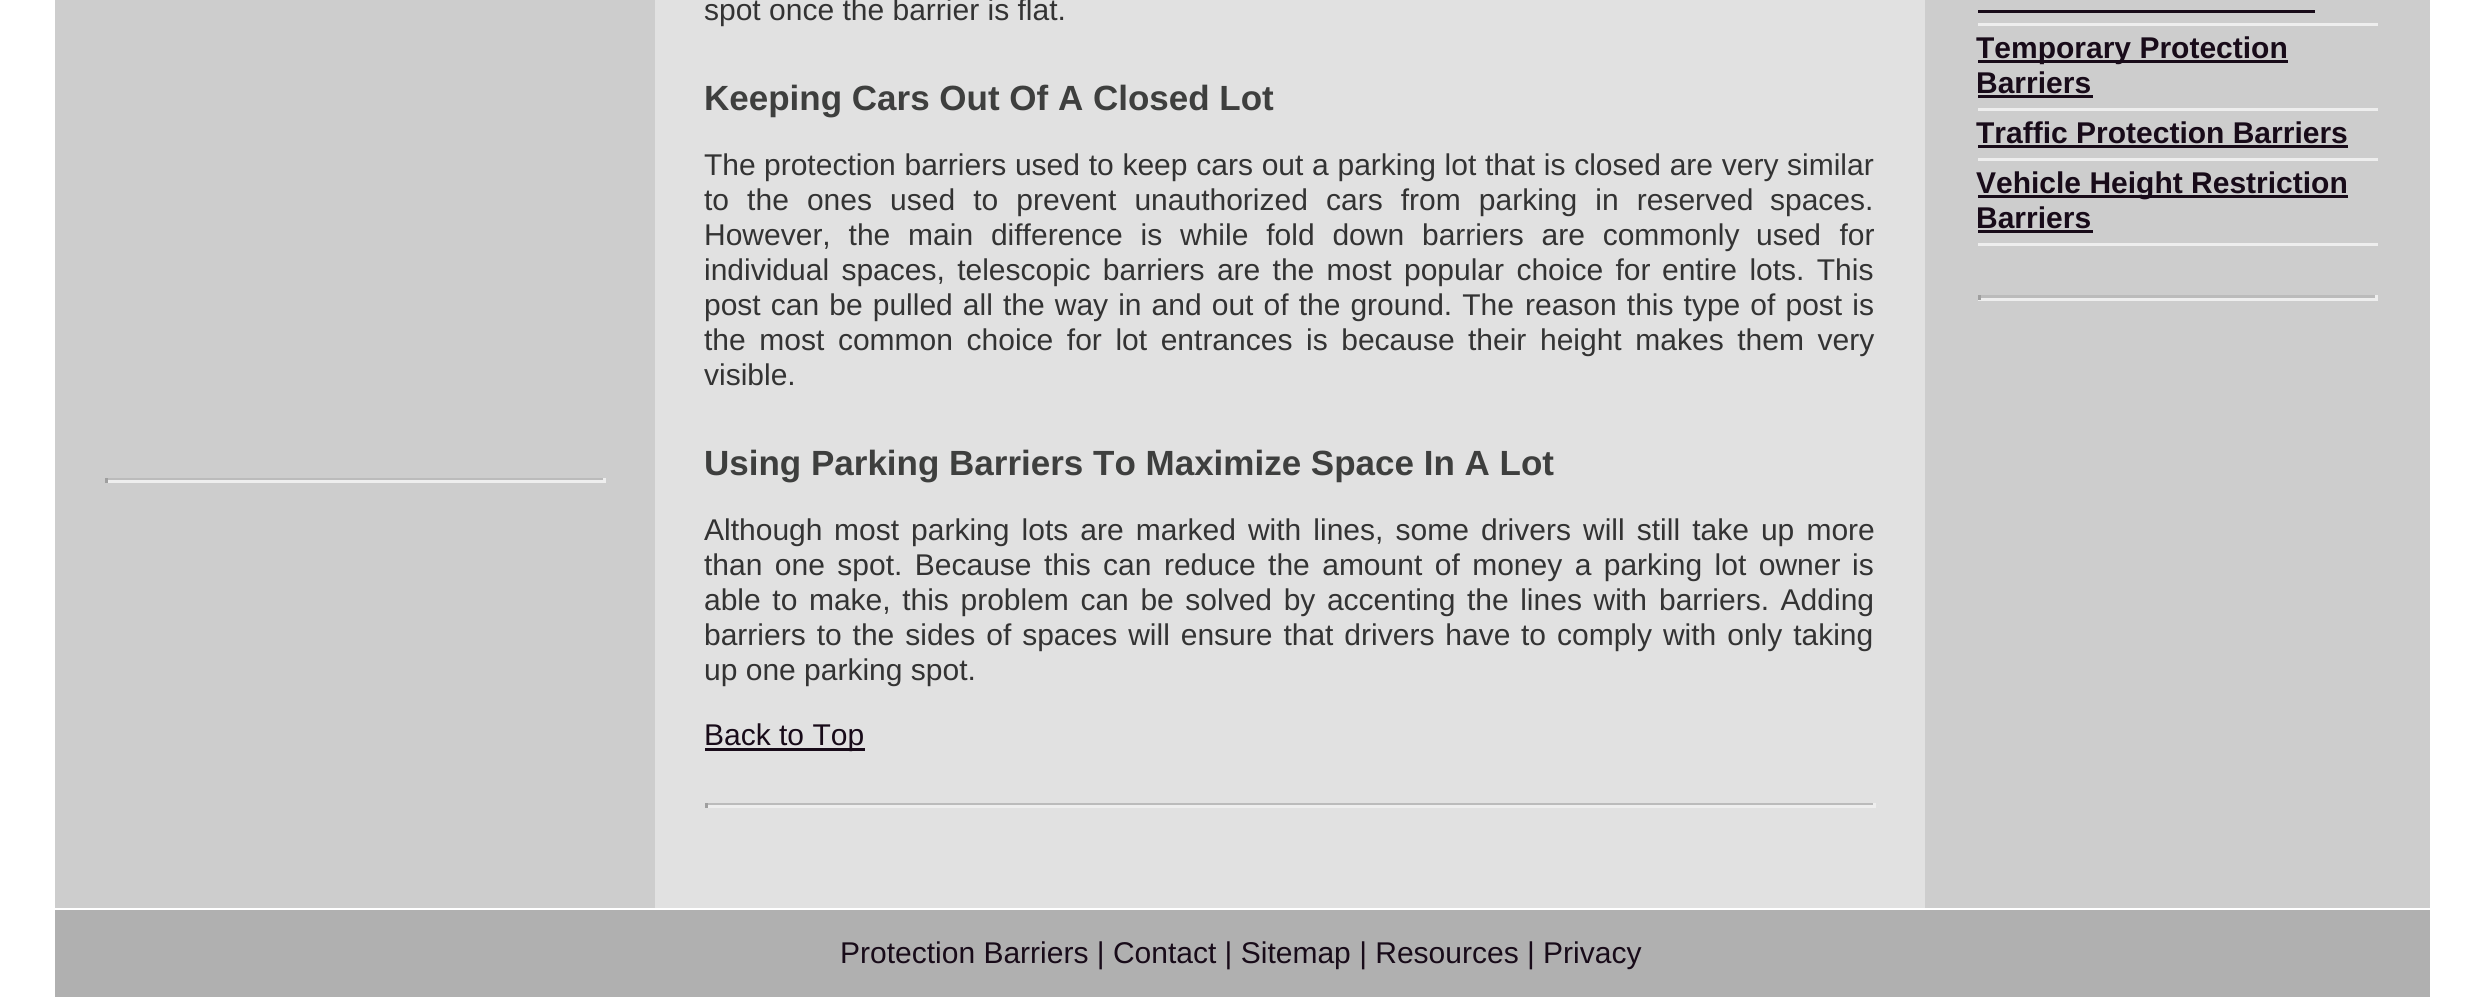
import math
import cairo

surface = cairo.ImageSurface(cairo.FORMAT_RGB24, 2482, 997)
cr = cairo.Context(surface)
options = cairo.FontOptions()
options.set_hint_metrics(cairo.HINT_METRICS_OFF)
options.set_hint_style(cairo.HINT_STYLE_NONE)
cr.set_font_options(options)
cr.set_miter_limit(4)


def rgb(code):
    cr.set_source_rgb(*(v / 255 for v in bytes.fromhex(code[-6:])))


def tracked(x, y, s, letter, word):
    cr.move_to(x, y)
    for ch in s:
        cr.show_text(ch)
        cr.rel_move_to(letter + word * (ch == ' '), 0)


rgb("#ffffff")
cr.paint()
for x, y, w, h, color in [
    (55, 0, 2375, 908, "#cdcdcd"),
    (655, 0, 1270, 908, "#e1e1e1"),
    (705, 748, 160, 3, "#180b19"),
    (705, 803, 1170, 2, "#bbbbbb"),
    (1873, 803, 3, 5, "#eeeeee"),
    (705, 805, 1170, 3, "#eeeeee"),
    (705, 803, 3, 5, "#9f9f9f"),
    (1978, 23, 400, 3, "#eeeeee"),
    (1978, 10, 337, 3, "#180b19"),
    (1978, 108, 400, 3, "#eeeeee"),
    (1978, 60, 310, 3, "#180b19"),
    (1978, 95, 115, 3, "#180b19"),
    (1978, 158, 400, 3, "#eeeeee"),
    (1978, 145, 370, 3, "#180b19"),
    (1978, 243, 400, 3, "#eeeeee"),
    (1978, 195, 370, 3, "#180b19"),
    (1978, 230, 115, 3, "#180b19"),
    (1978, 295, 400, 3, "#bbbbbb"),
    (2375, 295, 3, 5, "#eeeeee"),
    (1978, 298, 400, 3, "#eeeeee"),
    (1978, 295, 3, 5, "#9f9f9f"),
    (105, 478, 500, 2, "#bbbbbb"),
    (603, 478, 3, 5, "#eeeeee"),
    (105, 480, 500, 3, "#eeeeee"),
    (105, 478, 3, 5, "#9f9f9f"),
    (55, 910, 2375, 87, "#b0b0b0"),
]:
    rgb(color)
    cr.rectangle(x, y, w, h)
    cr.fill()
cr.select_font_face("Liberation Sans")
cr.set_font_size(30)
rgb("#333333")
cr.move_to(704, 20)
cr.show_text("spot once the barrier is flat.")
cr.select_font_face("Liberation Sans", cairo.FONT_SLANT_NORMAL, cairo.FONT_WEIGHT_BOLD)
cr.set_font_size(35)
rgb("#3e3f3e")
cr.move_to(704, 110)
cr.show_text("Keeping Cars Out Of A Closed Lot")
cr.select_font_face("Liberation Sans")
cr.set_font_size(30)
rgb("#333333")
cr.move_to(704, 175)
cr.show_text("The")
tracked(764, 175, "protection barriers used to keep cars out a parking lot that is closed are very", 0, 0.4)
cr.move_to(1787, 175)
cr.show_text("similar")
tracked(704, 210, "to the ones used to prevent unauthorized cars from parking in reserved", 0, 9.75)
cr.move_to(1770, 210)
cr.show_text("spaces.")
tracked(704, 245, "However, the main difference is while fold down barriers are commonly", 0, 9.5)
tracked(1756, 245, "used for", 0, 10)
tracked(704, 280, "individual spaces, telescopic barriers are the most popular choice for", 0, 4)
tracked(1662, 280, "entire lots. This", 0, 4)
tracked(704, 315, "post can be pulled all the way in and out of the ground. The", 0, 1.75)
tracked(1525, 315, "reason this type of post is", 0, 1.75)
tracked(704, 350, "the most common choice for lot entrances is because", 0, 5.25)
tracked(1468, 350, "their height makes them very", 0, 5.25)
cr.move_to(704, 385)
cr.show_text("visible.")
cr.select_font_face("Liberation Sans", cairo.FONT_SLANT_NORMAL, cairo.FONT_WEIGHT_BOLD)
cr.set_font_size(35)
rgb("#3e3f3e")
cr.move_to(704, 475)
cr.show_text("Using Parking Barriers To Maximize Space In A Lot")
cr.select_font_face("Liberation Sans")
cr.set_font_size(30)
rgb("#333333")
cr.move_to(704, 540)
cr.show_text("Although")
tracked(834, 540, "most parking lots are marked with lines, some drivers will still take up more", 0, 3.75)
tracked(704, 575, "than one spot. Because this can reduce the amount of money a parking lot owner", 0, 4.1)
cr.move_to(1852, 575)
cr.show_text("is")
tracked(704, 610, "able to make, this problem can be solved by accenting the lines with", 0, 3.25)
tracked(1659, 610, "barriers. Adding", 0, 3.25)
tracked(704, 645, "barriers to the sides of spaces will ensure that drivers have", 0, 2.6)
tracked(1521, 645, "to comply with only taking", 0, 2.6)
cr.move_to(704, 680)
cr.show_text("up one parking spot.")
rgb("#180b19")
cr.move_to(704, 745)
cr.show_text("Back to Top")
cr.select_font_face("Liberation Sans", cairo.FONT_SLANT_NORMAL, cairo.FONT_WEIGHT_BOLD)
for x, y, s in [
    (1976, 58, "Temporary Protection"),
    (1976, 93, "Barriers"),
    (1976, 143, "Traffic Protection Barriers"),
    (1976, 193, "Vehicle Height Restriction"),
    (1976, 228, "Barriers"),
]:
    cr.move_to(x, y)
    cr.show_text(s)
cr.select_font_face("Liberation Sans")
cr.move_to(840, 963)
cr.show_text("Protection Barriers | Contact | Sitemap | Resources | Privacy")
surface.write_to_png("page.png")
